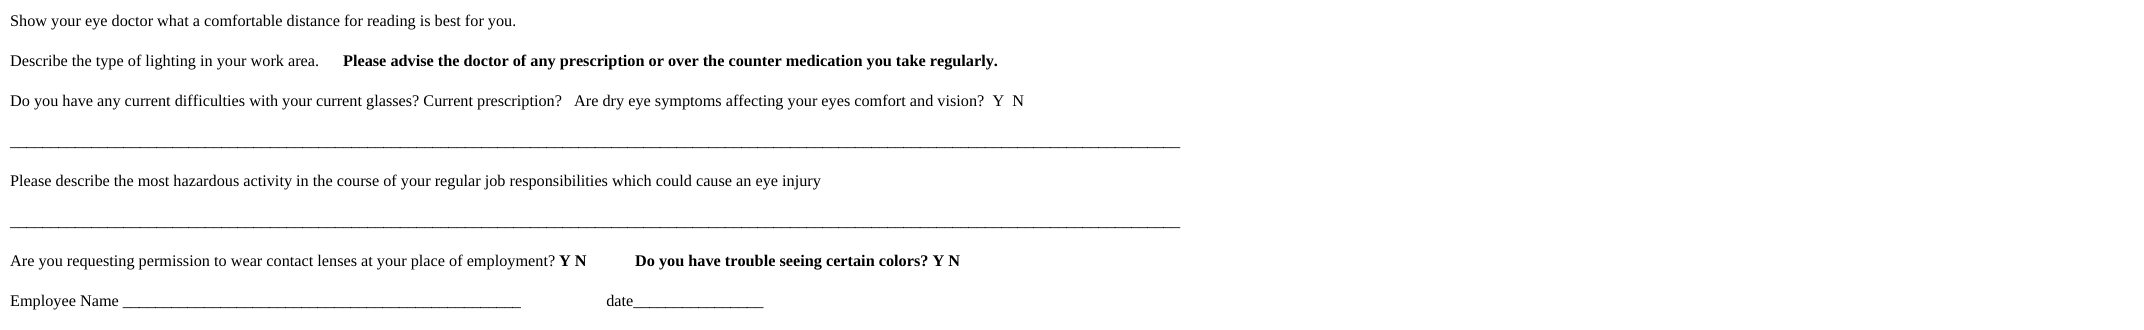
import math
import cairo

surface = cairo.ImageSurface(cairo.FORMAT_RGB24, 2144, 330)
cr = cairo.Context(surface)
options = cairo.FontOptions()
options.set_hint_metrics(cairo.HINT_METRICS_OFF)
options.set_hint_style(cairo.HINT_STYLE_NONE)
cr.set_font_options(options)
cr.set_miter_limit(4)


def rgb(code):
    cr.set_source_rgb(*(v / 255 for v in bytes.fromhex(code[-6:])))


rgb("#ffffff")
cr.paint()
cr.select_font_face("Liberation Serif")
cr.set_font_size(16.25)
rgb("#000000")
cr.move_to(10, 26)
cr.show_text("Show your eye doctor what a comfortable distance for reading is best for you.")
cr.move_to(10, 66)
cr.show_text("Describe the type of lighting in your work area.")
cr.select_font_face("Liberation Serif", cairo.FONT_SLANT_NORMAL, cairo.FONT_WEIGHT_BOLD)
cr.move_to(343, 66)
cr.show_text("Please advise the doctor of any prescription or over the counter medication you take regularly.")
cr.select_font_face("Liberation Serif")
for x, y, s in [
    (10, 106, "Do you have any current difficulties with your current glasses? Current prescription?   Are dry eye symptoms affecting your eyes comfort and vision?  Y  N"),
    (10, 146, "________________________________________________________________________________________________________________________________________________"),
    (10, 186, "Please describe the most hazardous activity in the course of your regular job responsibilities which could cause an eye injury"),
    (10, 226, "________________________________________________________________________________________________________________________________________________"),
    (10, 266, "Are you requesting permission to wear contact lenses at your place of employment?"),
]:
    cr.move_to(x, y)
    cr.show_text(s)
cr.select_font_face("Liberation Serif", cairo.FONT_SLANT_NORMAL, cairo.FONT_WEIGHT_BOLD)
cr.move_to(559, 266)
cr.show_text("Y N")
cr.move_to(635, 266)
cr.show_text("Do you have trouble seeing certain colors? Y N")
cr.select_font_face("Liberation Serif")
cr.move_to(10, 306)
cr.show_text("Employee Name _________________________________________________                     date________________")
surface.write_to_png("page.png")
